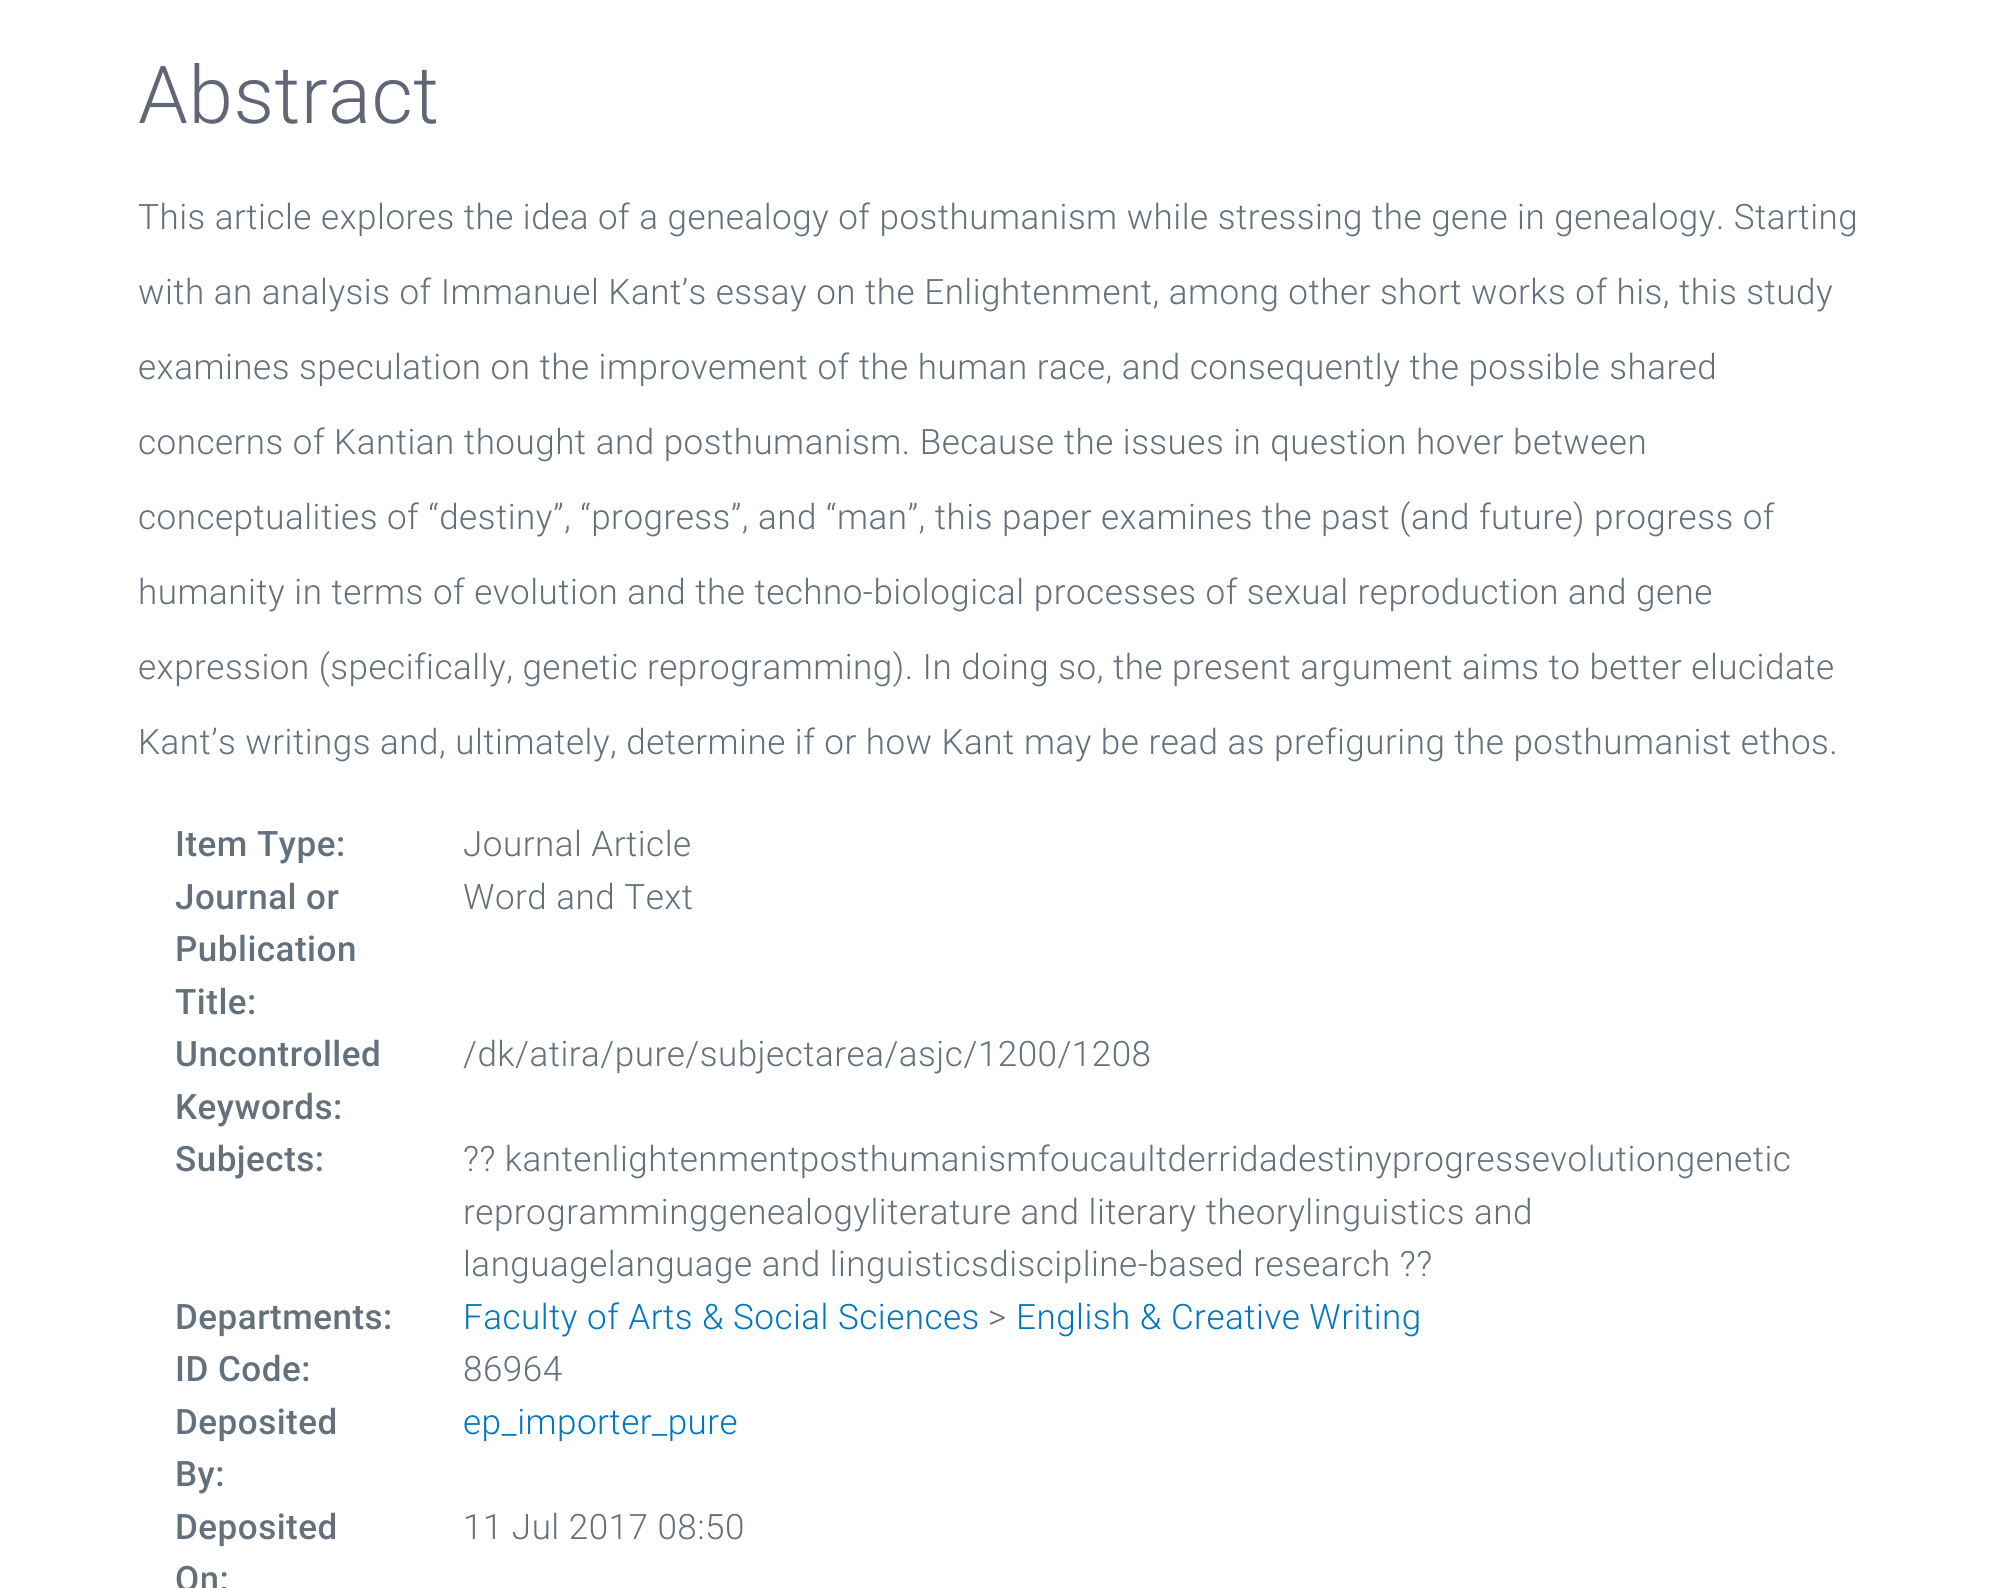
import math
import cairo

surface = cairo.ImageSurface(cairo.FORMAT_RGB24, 2000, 1588)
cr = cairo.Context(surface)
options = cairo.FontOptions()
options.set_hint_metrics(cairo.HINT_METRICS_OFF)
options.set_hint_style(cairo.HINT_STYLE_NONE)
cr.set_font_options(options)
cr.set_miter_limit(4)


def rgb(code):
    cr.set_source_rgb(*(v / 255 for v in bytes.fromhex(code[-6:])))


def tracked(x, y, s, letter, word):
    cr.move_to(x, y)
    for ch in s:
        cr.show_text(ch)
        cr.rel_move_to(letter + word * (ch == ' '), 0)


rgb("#ffffff")
cr.paint()
cr.select_font_face("Roboto Light")
cr.set_font_size(80)
rgb("#606676")
tracked(138, 123, "Abstract", 0.5, 0)
cr.set_font_size(35)
rgb("#64717c")
for x, y, s in [
    (138, 229, "This article explores the idea of a genealogy of posthumanism while stressing the gene in genealogy. Starting"),
    (138, 304, "with an analysis of Immanuel Kant’s essay on the Enlightenment, among other short works of his, this study"),
    (138, 379, "examines speculation on the improvement of the human race, and consequently the possible shared"),
    (138, 454, "concerns of Kantian thought and posthumanism. Because the issues in question hover between"),
    (138, 529, "conceptualities of “destiny”, “progress”, and “man”, this paper examines the past (and future) progress of"),
    (138, 604, "humanity in terms of evolution and the techno-biological processes of sexual reproduction and gene"),
    (138, 679, "expression (specifically, genetic reprogramming). In doing so, the present argument aims to better elucidate"),
    (138, 754, "Kant’s writings and, ultimately, determine if or how Kant may be read as prefiguring the posthumanist ethos."),
]:
    tracked(x, y, s, 0.5, 0)
cr.select_font_face("Roboto Medium")
tracked(175, 856, "Item Type:", 0.5, 0)
cr.select_font_face("Roboto Light")
tracked(463, 856, "Journal Article", 0.5, 0)
cr.select_font_face("Roboto Medium")
for x, y, s in [
    (175, 909, "Journal or"),
    (175, 961, "Publication"),
    (175, 1014, "Title:"),
]:
    tracked(x, y, s, 0.5, 0)
cr.select_font_face("Roboto Light")
tracked(463, 909, "Word and Text", 0.5, 0)
cr.select_font_face("Roboto Medium")
tracked(175, 1066, "Uncontrolled", 0.5, 0)
tracked(175, 1119, "Keywords:", 0.5, 0)
cr.select_font_face("Roboto Light")
tracked(463, 1066, "/dk/atira/pure/subjectarea/asjc/1200/1208", 0.5, 0)
cr.select_font_face("Roboto Medium")
tracked(175, 1171, "Subjects:", 0.5, 0)
cr.select_font_face("Roboto Light")
for x, y, s in [
    (463, 1171, "?? kantenlightenmentposthumanismfoucaultderridadestinyprogressevolutiongenetic"),
    (463, 1224, "reprogramminggenealogyliterature and literary theorylinguistics and"),
    (463, 1276, "languagelanguage and linguisticsdiscipline-based research ??"),
]:
    tracked(x, y, s, 0.5, 0)
cr.select_font_face("Roboto Medium")
tracked(175, 1329, "Departments:", 0.5, 0)
cr.select_font_face("Roboto Light")
rgb("#0076c1")
tracked(463, 1329, "Faculty of Arts & Social Sciences", 0.5, 0)
rgb("#64717c")
tracked(988, 1329, ">", 0.5, 0)
rgb("#0076c1")
tracked(1016, 1329, "English & Creative Writing", 0.5, 0)
cr.select_font_face("Roboto Medium")
rgb("#64717c")
tracked(175, 1381, "ID Code:", 0.5, 0)
cr.select_font_face("Roboto Light")
tracked(463, 1381, "86964", 0.5, 0)
cr.select_font_face("Roboto Medium")
tracked(175, 1434, "Deposited", 0.5, 0)
tracked(175, 1486, "By:", 0.5, 0)
cr.select_font_face("Roboto Light")
rgb("#0076c1")
tracked(463, 1434, "ep_importer_pure", 0.5, 0)
cr.select_font_face("Roboto Medium")
rgb("#64717c")
tracked(175, 1539, "Deposited", 0.5, 0)
tracked(175, 1591, "On:", 0.5, 0)
cr.select_font_face("Roboto Light")
tracked(463, 1539, "11 Jul 2017 08:50", 0.5, 0)
surface.write_to_png("page.png")
